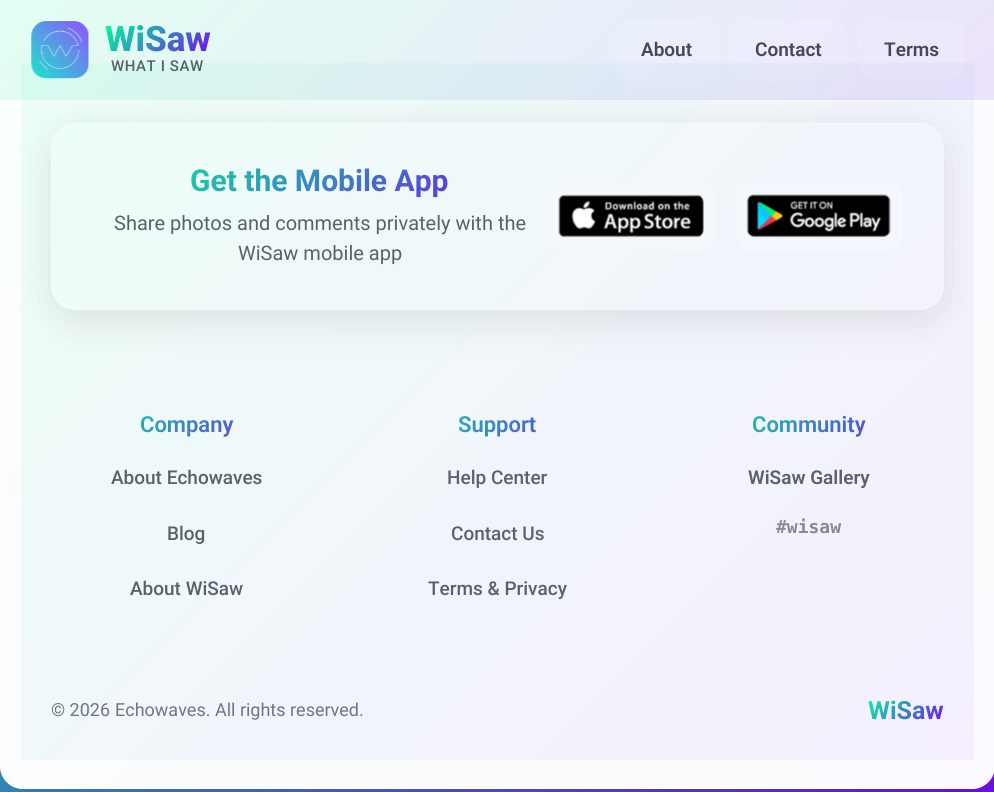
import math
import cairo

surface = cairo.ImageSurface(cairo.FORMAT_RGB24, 994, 792)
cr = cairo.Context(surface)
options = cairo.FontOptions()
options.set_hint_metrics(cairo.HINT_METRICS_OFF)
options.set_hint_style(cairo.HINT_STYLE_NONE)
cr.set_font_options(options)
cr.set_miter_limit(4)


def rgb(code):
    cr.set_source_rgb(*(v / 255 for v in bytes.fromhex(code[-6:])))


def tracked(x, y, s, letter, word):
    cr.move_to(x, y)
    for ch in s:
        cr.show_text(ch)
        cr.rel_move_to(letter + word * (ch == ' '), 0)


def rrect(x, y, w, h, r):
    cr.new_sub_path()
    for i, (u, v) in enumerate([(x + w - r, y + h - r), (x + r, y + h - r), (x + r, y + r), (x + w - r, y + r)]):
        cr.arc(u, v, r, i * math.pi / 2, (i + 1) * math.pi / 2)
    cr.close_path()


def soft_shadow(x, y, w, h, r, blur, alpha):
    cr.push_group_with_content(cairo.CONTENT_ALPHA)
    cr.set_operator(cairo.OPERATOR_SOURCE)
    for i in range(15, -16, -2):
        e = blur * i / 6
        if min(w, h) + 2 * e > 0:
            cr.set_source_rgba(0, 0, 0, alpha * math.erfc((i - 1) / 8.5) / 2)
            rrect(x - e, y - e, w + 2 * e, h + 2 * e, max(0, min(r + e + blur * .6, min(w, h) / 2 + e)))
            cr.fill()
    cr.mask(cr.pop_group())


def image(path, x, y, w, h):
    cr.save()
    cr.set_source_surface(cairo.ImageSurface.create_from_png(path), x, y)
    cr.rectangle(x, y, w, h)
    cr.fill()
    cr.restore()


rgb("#ffffff")
cr.paint()
gradient = cairo.LinearGradient(11, -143, 984, 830)
gradient.add_color_stop_rgba(0, 0, 1, 0.58, 1)
gradient.add_color_stop_rgba(1, 0.447, 0.047, 0.941, 1)
cr.set_source(gradient)
cr.rectangle(0, 0, 994, 792)
cr.fill()
cr.save()
cr.set_fill_rule(cairo.FILL_RULE_EVEN_ODD)
cr.new_path()
cr.move_to(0, 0)
cr.line_to(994, 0)
cr.line_to(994, 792)
cr.line_to(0, 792)
cr.close_path()
cr.move_to(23, -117)
cr.line_to(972, -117)
cr.curve_to(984.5, -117, 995, -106.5, 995, -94)
cr.line_to(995, 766)
cr.curve_to(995, 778.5, 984.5, 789, 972, 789)
cr.line_to(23, 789)
cr.curve_to(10.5, 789, 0, 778.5, 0, 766)
cr.line_to(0, -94)
cr.curve_to(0, -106.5, 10.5, -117, 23, -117)
cr.close_path()
cr.clip()
rgb("#000000")
soft_shadow(0, -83, 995, 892, 23, 20, 0.12)
cr.restore()
cr.set_source_rgba(1, 1, 1, 0.98)
rrect(0, -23, 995, 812, 23)
cr.fill()
rrect(0.5, -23.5, 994, 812, 22.5)
cr.set_source_rgba(1, 1, 1, 0.4)
cr.set_line_width(1)
cr.stroke()
gradient = cairo.LinearGradient(85, -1.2, 910, 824)
gradient.add_color_stop_rgba(0, 0, 1, 0.58, 0.05)
gradient.add_color_stop_rgba(1, 0.447, 0.047, 0.941, 0.05)
cr.set_source(gradient)
cr.rectangle(21, 63, 953, 697)
cr.fill()
gradient = cairo.LinearGradient(51, 361, 944, 361)
gradient.add_color_stop_rgba(0, 1, 1, 1, 0)
gradient.add_color_stop_rgba(0.5, 1, 1, 1, 0.3)
gradient.add_color_stop_rgba(1, 1, 1, 1, 0)
cr.set_source(gradient)
cr.rectangle(311, 360, 350, 1)
cr.fill()
cr.save()
cr.set_fill_rule(cairo.FILL_RULE_EVEN_ODD)
cr.new_path()
cr.move_to(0, 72)
cr.line_to(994, 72)
cr.line_to(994, 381)
cr.line_to(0, 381)
cr.close_path()
cr.move_to(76, 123)
cr.line_to(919, 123)
cr.curve_to(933, 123, 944, 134, 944, 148)
cr.line_to(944, 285)
cr.curve_to(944, 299, 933, 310, 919, 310)
cr.line_to(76, 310)
cr.curve_to(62, 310, 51, 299, 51, 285)
cr.line_to(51, 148)
cr.curve_to(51, 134, 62, 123, 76, 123)
cr.close_path()
cr.clip()
rgb("#000000")
soft_shadow(51, 133, 893, 187, 25, 20, 0.1)
cr.restore()
cr.set_source_rgba(1, 1, 1, 0.2)
cr.rectangle(21, 100, 953, 1)
cr.fill()
gradient = cairo.LinearGradient(224, -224, 771, 324)
gradient.add_color_stop_rgba(0, 0, 1, 0.58, 0.1)
gradient.add_color_stop_rgba(1, 0.447, 0.047, 0.941, 0.1)
cr.set_source(gradient)
cr.rectangle(0, 0, 994, 100)
cr.fill()
cr.set_source_rgba(1, 1, 1, 0.2)
rrect(30, 20, 60, 60, 20)
cr.fill()
rrect(30.5, 20.5, 59, 59, 19.5)
cr.set_source_rgba(1, 1, 1, 0.3)
cr.stroke()
image("img/1.png", 31, 21, 58, 58)
cr.set_source_rgba(1, 1, 1, 0.1)
rrect(615, 19, 104, 62, 20)
cr.fill()
rrect(729, 19, 119, 62, 20)
cr.fill()
rrect(858, 19, 107, 62, 20)
cr.fill()
rrect(51.5, 123.5, 892, 186, 24.5)
cr.set_source_rgba(1, 1, 1, 0.2)
cr.stroke()
rgb("#f4f8fb")
rrect(546, 183, 169, 67, 15)
cr.fill()
image("img/2.png", 558, 194, 146, 44)
rgb("#f4f7fc")
rrect(735, 183, 168, 67, 15)
cr.fill()
image("img/3.png", 746, 194, 145, 44)
cr.select_font_face("Roboto ExtraBold")
cr.set_font_size(35)
gradient = cairo.LinearGradient(123, 4, 193, 74)
gradient.add_color_stop_rgba(0, 0, 1, 0.58, 1)
gradient.add_color_stop_rgba(1, 0.447, 0.047, 0.941, 1)
cr.set_source(gradient)
cr.move_to(105, 51)
cr.show_text("WiSaw")
cr.select_font_face("Roboto Medium")
cr.set_font_size(15)
rgb("#546167")
tracked(111, 71, "WHAT I SAW", 0.6, 0)
cr.select_font_face("Roboto SemiBold")
cr.set_font_size(19)
rgb("#444955")
for x, y, s in [
    (641, 56, "About"),
    (755, 56, "Contact"),
    (884, 56, "Terms"),
]:
    cr.move_to(x, y)
    cr.show_text(s)
cr.select_font_face("Roboto", cairo.FONT_SLANT_NORMAL, cairo.FONT_WEIGHT_BOLD)
cr.set_font_size(30)
gradient = cairo.LinearGradient(197, 59, 442, 304)
gradient.add_color_stop_rgba(0, 0, 1, 0.58, 1)
gradient.add_color_stop_rgba(1, 0.447, 0.047, 0.941, 1)
cr.set_source(gradient)
cr.move_to(190, 191)
cr.show_text("Get the Mobile App")
cr.select_font_face("Roboto")
cr.set_font_size(20)
rgb("#5a616a")
cr.move_to(114, 230)
cr.show_text("Share photos and comments privately with the")
cr.move_to(238, 260)
cr.show_text("WiSaw mobile app")
cr.select_font_face("Roboto SemiBold")
cr.set_font_size(22)
gradient = cairo.LinearGradient(112, 351, 261, 499)
gradient.add_color_stop_rgba(0, 0, 1, 0.58, 1)
gradient.add_color_stop_rgba(1, 0.447, 0.047, 0.941, 1)
cr.set_source(gradient)
cr.move_to(140, 432)
cr.show_text("Company")
cr.select_font_face("Roboto Medium")
cr.set_font_size(19)
rgb("#5a616a")
for x, y, s in [
    (111, 484, "About Echowaves"),
    (167, 540, "Blog"),
    (130, 595, "About WiSaw"),
]:
    cr.move_to(x, y)
    cr.show_text(s)
cr.select_font_face("Roboto SemiBold")
cr.set_font_size(22)
gradient = cairo.LinearGradient(423, 351, 572, 499)
gradient.add_color_stop_rgba(0, 0, 1, 0.58, 1)
gradient.add_color_stop_rgba(1, 0.447, 0.047, 0.941, 1)
cr.set_source(gradient)
cr.move_to(458, 432)
cr.show_text("Support")
cr.select_font_face("Roboto Medium")
cr.set_font_size(19)
rgb("#5a616a")
for x, y, s in [
    (447, 484, "Help Center"),
    (451, 540, "Contact Us"),
    (428, 595, "Terms & Privacy"),
]:
    cr.move_to(x, y)
    cr.show_text(s)
cr.select_font_face("Roboto SemiBold")
cr.set_font_size(22)
gradient = cairo.LinearGradient(734, 351, 883, 499)
gradient.add_color_stop_rgba(0, 0, 1, 0.58, 1)
gradient.add_color_stop_rgba(1, 0.447, 0.047, 0.941, 1)
cr.set_source(gradient)
cr.move_to(752, 432)
cr.show_text("Community")
cr.set_font_size(19)
rgb("#5a616a")
cr.move_to(748, 484)
cr.show_text("WiSaw Gallery")
cr.select_font_face("DejaVu Sans Mono", cairo.FONT_SLANT_NORMAL, cairo.FONT_WEIGHT_BOLD)
cr.set_font_size(18)
rgb("#868994")
cr.move_to(776, 533)
cr.show_text("#wisaw")
cr.select_font_face("Roboto")
rgb("#70767e")
cr.move_to(51, 716)
cr.show_text("© 2026")
cr.move_to(115, 716)
cr.show_text("Echowaves. All rights reserved.")
cr.select_font_face("Roboto", cairo.FONT_SLANT_NORMAL, cairo.FONT_WEIGHT_BOLD)
cr.set_font_size(25)
gradient = cairo.LinearGradient(880, 684, 932, 737)
gradient.add_color_stop_rgba(0, 0, 1, 0.58, 1)
gradient.add_color_stop_rgba(1, 0.447, 0.047, 0.941, 1)
cr.set_source(gradient)
cr.move_to(868, 719)
cr.show_text("WiSaw")
surface.write_to_png("page.png")
